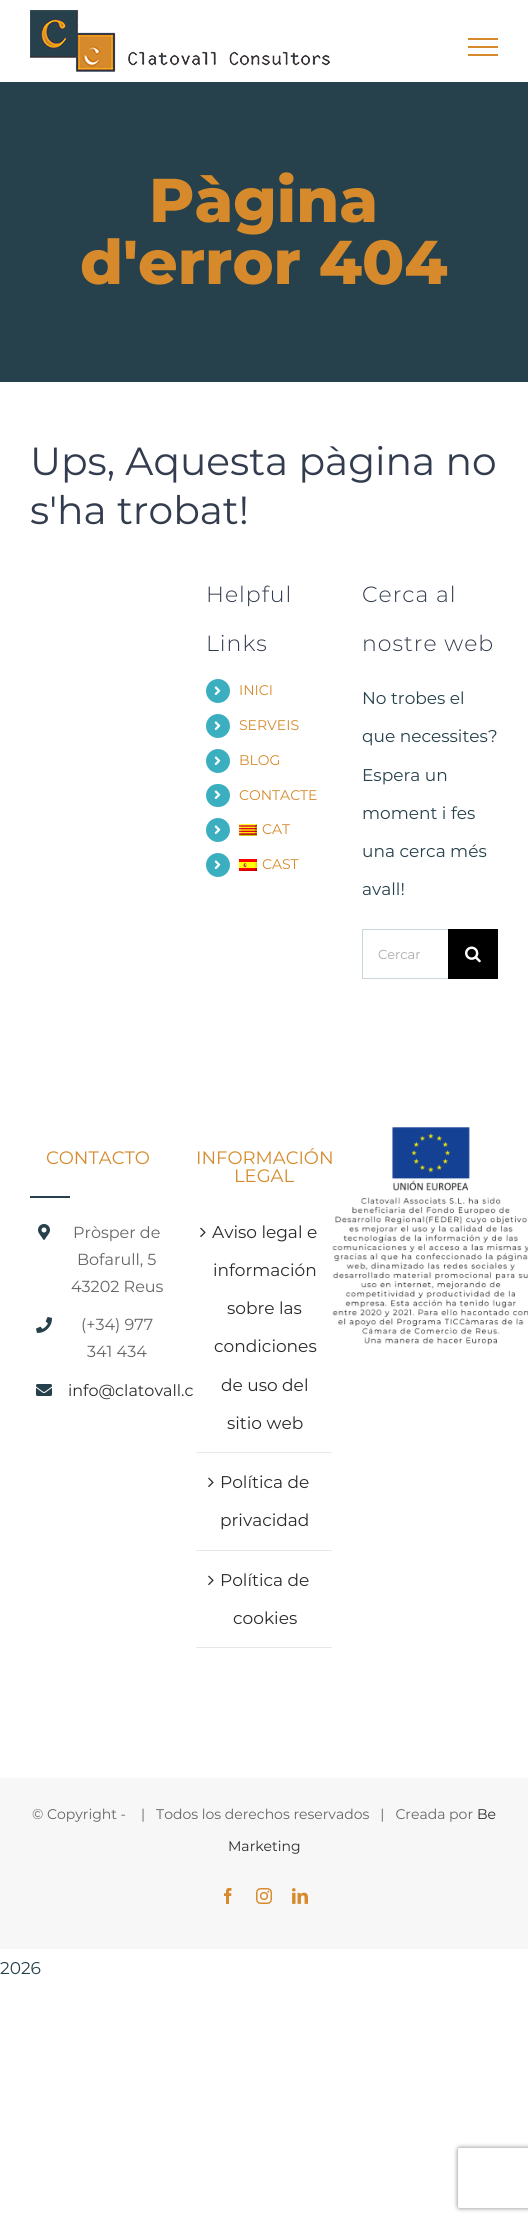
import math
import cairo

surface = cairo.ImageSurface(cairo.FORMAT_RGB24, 528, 2222)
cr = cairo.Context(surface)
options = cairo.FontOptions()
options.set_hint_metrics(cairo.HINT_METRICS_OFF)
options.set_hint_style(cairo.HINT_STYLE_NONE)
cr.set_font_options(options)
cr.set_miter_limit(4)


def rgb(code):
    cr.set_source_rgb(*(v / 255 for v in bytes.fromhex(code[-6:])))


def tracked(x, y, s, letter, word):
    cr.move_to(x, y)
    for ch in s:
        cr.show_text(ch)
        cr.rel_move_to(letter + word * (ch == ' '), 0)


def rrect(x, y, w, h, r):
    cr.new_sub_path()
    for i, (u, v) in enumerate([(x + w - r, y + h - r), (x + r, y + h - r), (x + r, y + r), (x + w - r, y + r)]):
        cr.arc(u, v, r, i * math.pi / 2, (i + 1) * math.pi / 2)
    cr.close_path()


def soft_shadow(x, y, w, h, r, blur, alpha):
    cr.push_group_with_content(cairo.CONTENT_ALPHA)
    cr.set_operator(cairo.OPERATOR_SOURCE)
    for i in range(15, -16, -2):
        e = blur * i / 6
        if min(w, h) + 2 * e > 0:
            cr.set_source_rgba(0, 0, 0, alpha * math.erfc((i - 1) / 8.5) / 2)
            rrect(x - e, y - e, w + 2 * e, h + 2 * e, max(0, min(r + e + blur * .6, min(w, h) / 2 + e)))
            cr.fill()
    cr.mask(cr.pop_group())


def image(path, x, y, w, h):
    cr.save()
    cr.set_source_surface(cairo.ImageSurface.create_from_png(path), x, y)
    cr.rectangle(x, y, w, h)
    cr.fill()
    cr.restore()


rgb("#ffffff")
cr.paint()
image("img/1.png", 30, 10, 300, 62)
for x, y, w, h, color in [
    (468, 38, 30, 2, "#d68a2b"),
    (468, 46, 30, 2, "#d68a2b"),
    (468, 54, 30, 2, "#d68a2b"),
    (0, 82, 528, 300, "#27414c"),
]:
    rgb(color)
    cr.rectangle(x, y, w, h)
    cr.fill()
rgb("#3bafbf")
cr.arc(218, 691, 12, 0, 2 * math.pi)
cr.fill()
image("img/2.png", 214, 686, 7, 10)
cr.arc(218, 726, 12, 0, 2 * math.pi)
cr.fill()
image("img/2.png", 214, 721, 7, 10)
cr.arc(218, 761, 12, 0, 2 * math.pi)
cr.fill()
image("img/2.png", 214, 756, 7, 10)
rrect(206, 784, 24, 23, 11.5)
cr.fill()
image("img/2.png", 214, 790, 7, 10)
cr.arc(218, 830, 12, 0, 2 * math.pi)
cr.fill()
image("img/2.png", 214, 825, 7, 10)
image("img/3.png", 239, 824, 18, 12)
cr.arc(218, 865, 12, 0, 2 * math.pi)
cr.fill()
image("img/2.png", 214, 860, 7, 10)
image("img/4.png", 239, 859, 18, 12)
rgb("#c8d7d9")
cr.new_path()
cr.move_to(362, 929)
cr.line_to(448, 929)
cr.line_to(448, 930)
cr.line_to(363, 930)
cr.close_path()
cr.fill()
cr.new_path()
cr.move_to(448, 979)
cr.line_to(362, 979)
cr.line_to(363, 978)
cr.line_to(448, 978)
cr.close_path()
cr.fill()
cr.set_source_rgba(0.718, 0.796, 0.808, 0.77)
cr.new_path()
cr.move_to(362, 979)
cr.line_to(362, 929)
cr.line_to(363, 930)
cr.line_to(363, 978)
cr.close_path()
cr.fill()
rgb("#000000")
cr.rectangle(448, 929, 50, 50)
cr.fill()
image("img/5.png", 465, 946, 16, 17)
rgb("#27414c")
cr.rectangle(30, 1196, 40, 2)
cr.fill()
image("img/6.png", 38, 1224, 12, 16)
image("img/7.png", 36, 1317, 16, 16)
image("img/8.png", 36, 1384, 16, 12)
rgb("#e7e7e7")
cr.rectangle(196, 1452, 136, 1)
cr.fill()
image("img/9.png", 200, 1227, 6, 11)
cr.rectangle(196, 1550, 136, 1)
cr.fill()
image("img/9.png", 208, 1477, 6, 11)
cr.rectangle(196, 1647, 136, 1)
cr.fill()
image("img/9.png", 208, 1575, 6, 11)
image("img/10.png", 332, 1127, 196, 218)
rgb("#f7f7f7")
cr.rectangle(0, 1778, 528, 171)
cr.fill()
image("img/11.png", 224, 1888, 8, 16)
image("img/12.png", 256, 1888, 16, 16)
image("img/13.png", 292, 1888, 16, 16)
cr.save()
cr.set_fill_rule(cairo.FILL_RULE_EVEN_ODD)
cr.new_path()
cr.move_to(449, 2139)
cr.line_to(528, 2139)
cr.line_to(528, 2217)
cr.line_to(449, 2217)
cr.close_path()
cr.move_to(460, 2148)
cr.line_to(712, 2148)
cr.curve_to(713, 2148, 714, 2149, 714, 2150)
cr.line_to(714, 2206)
cr.curve_to(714, 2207, 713, 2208, 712, 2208)
cr.line_to(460, 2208)
cr.curve_to(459, 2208, 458, 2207, 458, 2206)
cr.line_to(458, 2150)
cr.curve_to(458, 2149, 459, 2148, 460, 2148)
cr.close_path()
cr.clip()
rgb("#808080")
soft_shadow(458, 2148, 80, 60, 2, 2.5, 1)
cr.restore()
cr.select_font_face("Montserrat ExtraBold")
cr.set_font_size(61.75)
rgb("#d68a2b")
cr.move_to(149, 222)
cr.show_text("Pàgina")
cr.move_to(80, 284)
cr.show_text("d'error 404")
cr.select_font_face("Montserrat")
cr.set_font_size(39.2)
rgb("#333c4e")
cr.move_to(30, 475)
cr.show_text("Ups, Aquesta pàgina no")
cr.move_to(30, 524)
cr.show_text("s'ha trobat!")
cr.select_font_face("Montserrat Light")
cr.set_font_size(22)
tracked(206, 602, "Helpful", 1, 0)
tracked(206, 651, "Links", 1, 0)
cr.select_font_face("Montserrat")
cr.set_font_size(14)
rgb("#d68a2b")
for x, y, s in [
    (239, 695, "INICI"),
    (239, 730, "SERVEIS"),
    (239, 765, "BLOG"),
    (239, 800, "CONTACTE"),
    (262, 834, "CAT"),
    (262, 869, "CAST"),
]:
    cr.move_to(x, y)
    cr.show_text(s)
cr.select_font_face("Montserrat Light")
cr.set_font_size(22)
rgb("#333c4e")
tracked(362, 602, "Cerca al", 1, 0)
tracked(362, 651, "nostre web", 1, 0)
cr.select_font_face("Montserrat")
cr.set_font_size(17)
rgb("#27414c")
for x, y, s in [
    (362, 704, "No trobes el"),
    (362, 742, "que necessites?"),
    (362, 781, "Espera un"),
    (362, 819, "moment i fes"),
    (362, 857, "una cerca més"),
    (362, 895, "avall!"),
]:
    cr.move_to(x, y)
    cr.show_text(s)
cr.set_font_size(13)
rgb("#aaa9a9")
cr.move_to(378, 959)
cr.show_text("Cercar")
cr.set_font_size(18)
rgb("#d68a2b")
cr.move_to(46, 1164)
cr.show_text("CONTACTO")
cr.set_font_size(16)
rgb("#666666")
for x, y, s in [
    (73, 1238, "Pròsper de"),
    (77, 1265, "Bofarull, 5"),
    (71, 1292, "43202 Reus"),
    (81, 1330, "(+34) 977"),
    (87, 1357, "341 434"),
]:
    cr.move_to(x, y)
    cr.show_text(s)
rgb("#2b2b2b")
cr.move_to(68, 1396)
cr.show_text("info@clatovall.c")
cr.set_font_size(18)
rgb("#d68a2b")
cr.move_to(196, 1164)
cr.show_text("INFORMACIÓN")
cr.move_to(234, 1182)
cr.show_text("LEGAL")
cr.set_font_size(17)
rgb("#2b2b2b")
for x, y, s in [
    (212, 1238, "Aviso legal e"),
    (213, 1276, "información"),
    (227, 1314, "sobre las"),
    (214, 1352, "condiciones"),
    (221, 1391, "de uso del"),
    (227, 1429, "sitio web"),
    (220, 1488, "Política de"),
    (220, 1526, "privacidad"),
    (220, 1586, "Política de"),
    (233, 1624, "cookies"),
]:
    cr.move_to(x, y)
    cr.show_text(s)
cr.set_font_size(14)
rgb("#666666")
cr.move_to(32, 1819)
cr.show_text("© Copyright -")
cr.move_to(141, 1819)
cr.show_text("|   Todos los derechos reservados   |   Creada por")
rgb("#2b2b2b")
cr.move_to(477, 1819)
cr.show_text("Be")
cr.move_to(228, 1851)
cr.show_text("Marketing")
cr.set_font_size(17)
rgb("#27414c")
cr.move_to(0, 1974)
cr.show_text("2026")
surface.write_to_png("page.png")
